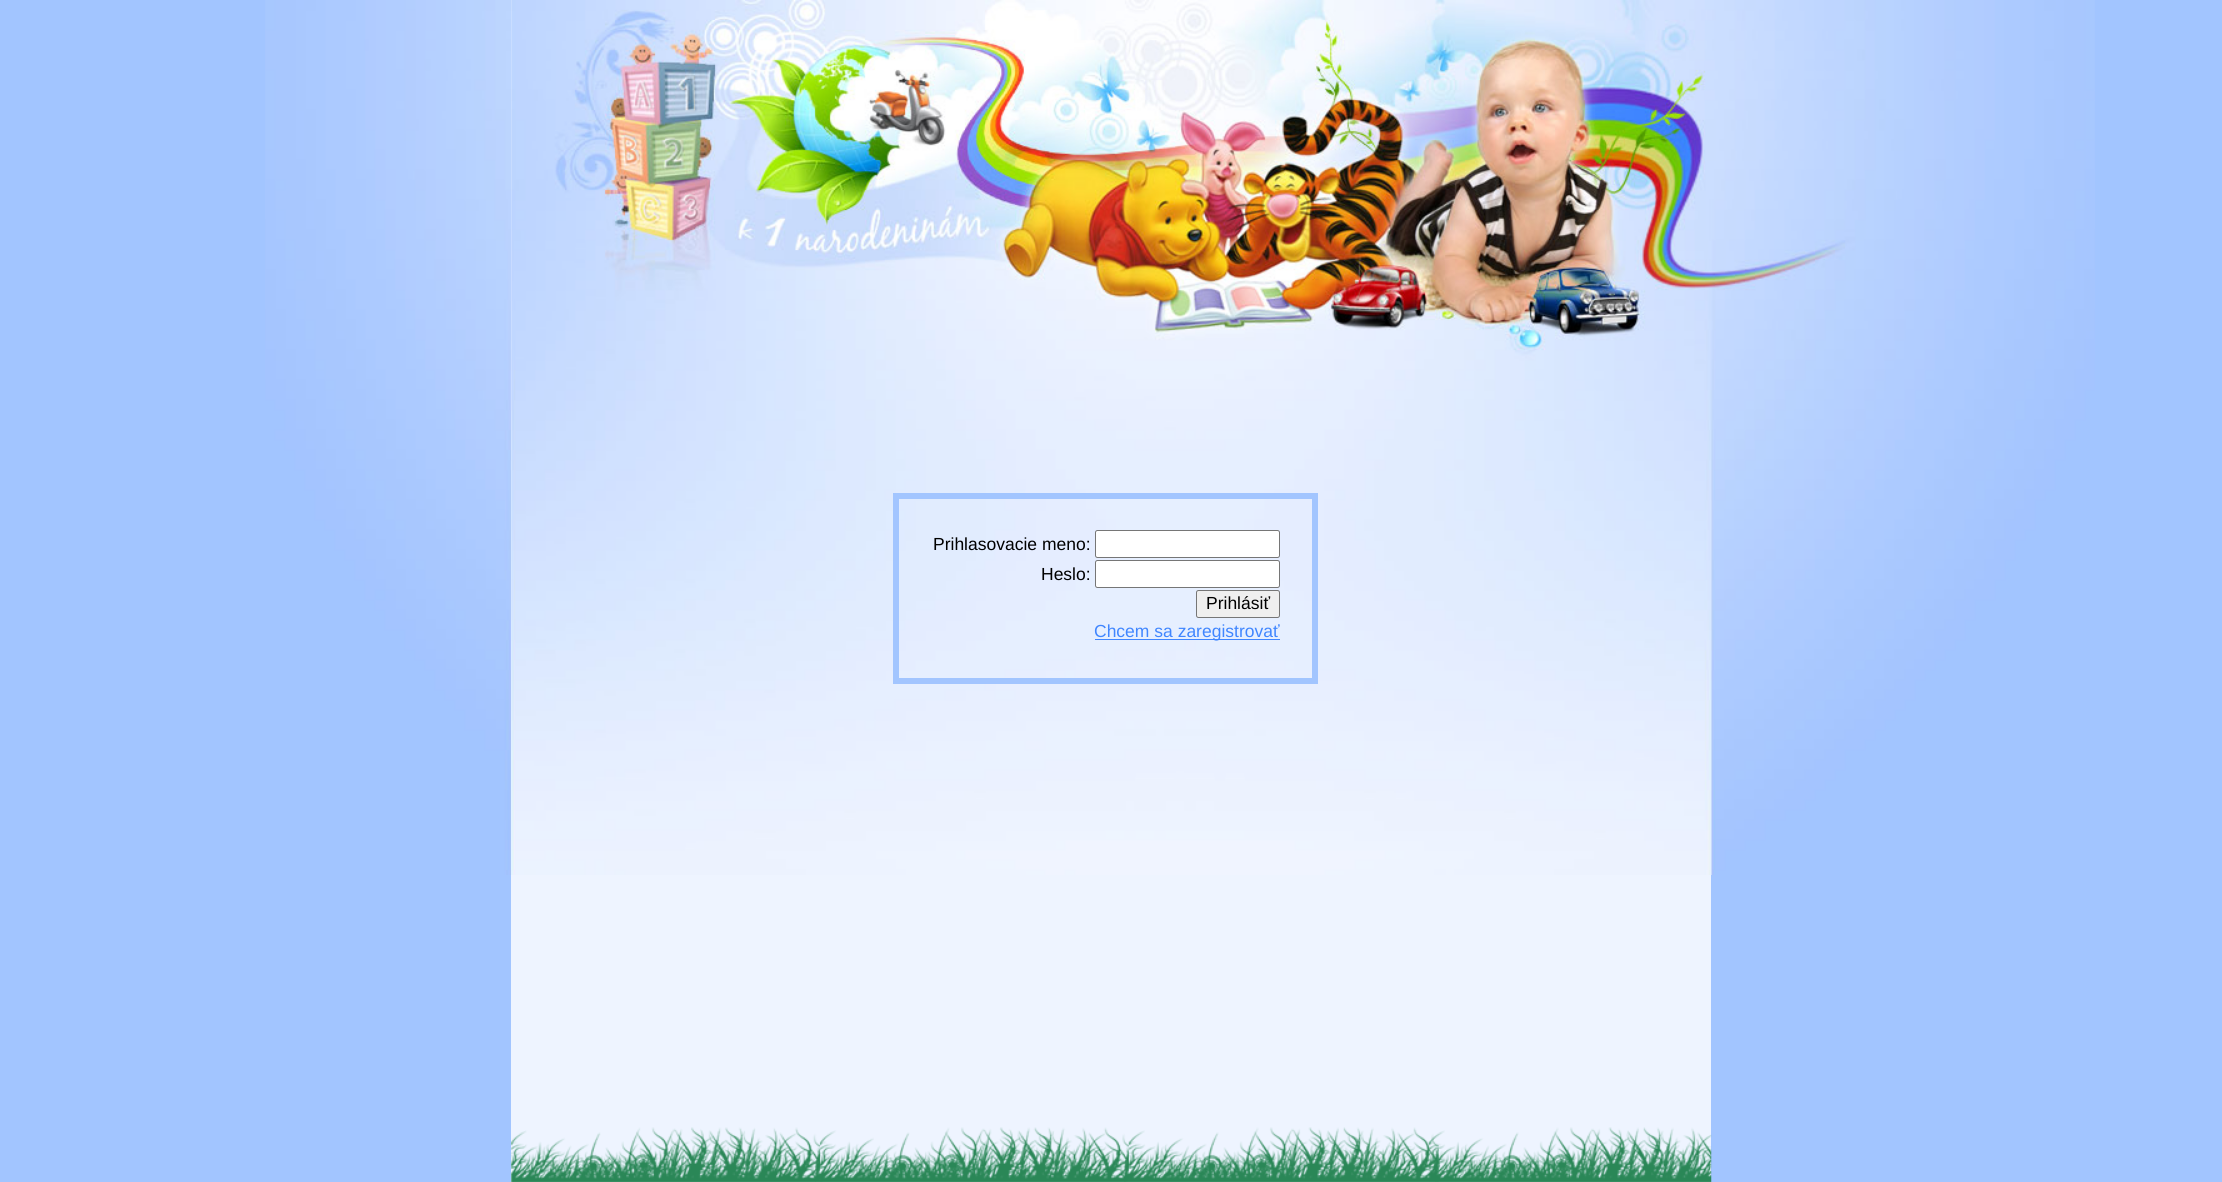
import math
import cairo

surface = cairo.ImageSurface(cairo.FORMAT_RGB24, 2222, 1182)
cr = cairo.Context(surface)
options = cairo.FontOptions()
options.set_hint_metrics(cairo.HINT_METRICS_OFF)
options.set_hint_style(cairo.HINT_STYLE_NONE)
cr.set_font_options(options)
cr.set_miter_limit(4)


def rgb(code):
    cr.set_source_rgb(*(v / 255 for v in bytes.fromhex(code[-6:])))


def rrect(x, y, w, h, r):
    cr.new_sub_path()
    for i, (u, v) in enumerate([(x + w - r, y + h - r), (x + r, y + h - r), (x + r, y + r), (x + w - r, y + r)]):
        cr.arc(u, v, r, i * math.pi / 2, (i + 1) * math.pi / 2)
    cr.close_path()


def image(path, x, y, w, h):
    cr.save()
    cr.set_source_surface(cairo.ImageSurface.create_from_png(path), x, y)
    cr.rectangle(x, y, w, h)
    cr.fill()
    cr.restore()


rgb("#a2c5ff")
cr.paint()
image("img/1.png", 265, 0, 1830, 875)
rgb("#eef4ff")
cr.rectangle(511, 0, 1200, 1182)
cr.fill()
image("img/2.png", 511, 1127, 1201, 55)
image("img/3.png", 511, 0, 1201, 875)
cr.rectangle(896, 496, 419, 185)
rgb("#a2c5ff")
cr.set_line_width(6)
cr.stroke()
rgb("#ffffff")
rrect(1095.5, 530.5, 184, 27, 2)
cr.fill_preserve()
rgb("#767676")
cr.set_line_width(1)
cr.stroke()
rgb("#ffffff")
rrect(1095.5, 560.5, 184, 27, 2)
cr.fill_preserve()
rgb("#767676")
cr.stroke()
rgb("#efefef")
rrect(1196.5, 590.5, 83, 27, 2)
cr.fill_preserve()
rgb("#767676")
cr.stroke()
rgb("#4086ff")
cr.rectangle(1095, 639, 185, 1)
cr.fill()
cr.select_font_face("Liberation Sans")
cr.set_font_size(17.5)
rgb("#000000")
for x, y, s in [
    (933, 550, "Prihlasovacie meno:"),
    (1041, 580, "Heslo:"),
    (1206, 609, "Prihlásiť"),
]:
    cr.move_to(x, y)
    cr.show_text(s)
rgb("#4086ff")
cr.move_to(1094, 637)
cr.show_text("Chcem sa zaregistrovať")
surface.write_to_png("page.png")
